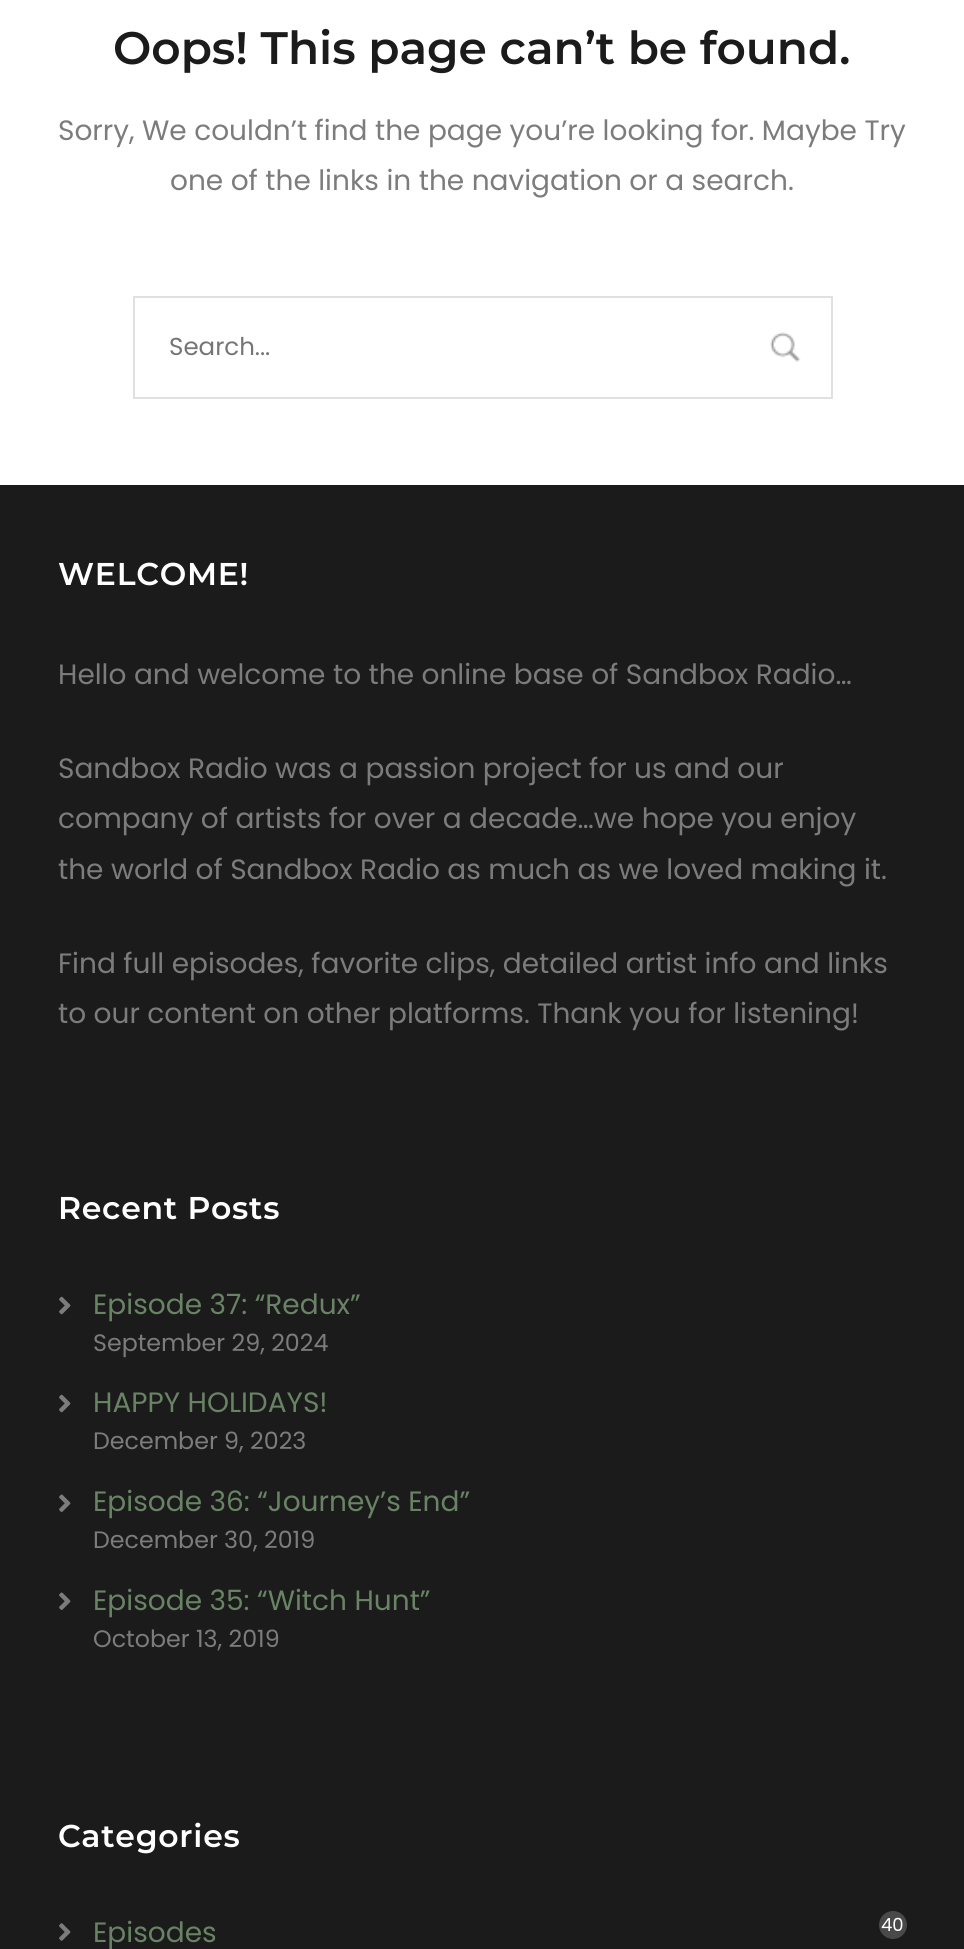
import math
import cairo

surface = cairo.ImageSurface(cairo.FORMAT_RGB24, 964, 1949)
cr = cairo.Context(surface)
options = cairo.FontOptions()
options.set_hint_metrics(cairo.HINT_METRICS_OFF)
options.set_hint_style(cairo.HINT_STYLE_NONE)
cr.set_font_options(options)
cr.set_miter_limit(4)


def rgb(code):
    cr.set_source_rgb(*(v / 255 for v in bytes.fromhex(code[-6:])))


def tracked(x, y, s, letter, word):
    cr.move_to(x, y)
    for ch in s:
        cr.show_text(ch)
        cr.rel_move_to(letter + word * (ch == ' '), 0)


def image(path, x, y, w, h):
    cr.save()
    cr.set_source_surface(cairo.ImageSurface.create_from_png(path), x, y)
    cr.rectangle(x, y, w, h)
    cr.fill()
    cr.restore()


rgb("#ffffff")
cr.paint()
image("img/1.png", 770, 332, 31, 31)
cr.rectangle(134, 297, 698, 101)
rgb("#e0e0e0")
cr.stroke()
rgb("#1b1b1b")
cr.rectangle(0, 485, 964, 1464)
cr.fill()
image("img/2.png", 59, 1296, 12, 19)
image("img/2.png", 59, 1394, 12, 19)
image("img/3.png", 59, 1494, 12, 18)
image("img/3.png", 59, 1592, 12, 18)
image("img/4.png", 59, 1923, 12, 18)
rgb("#494949")
cr.arc(893, 1925, 14, 0, 2 * math.pi)
cr.fill()
cr.select_font_face("Montserrat SemiBold")
cr.set_font_size(45.5)
rgb("#1b1b1b")
cr.move_to(113, 64)
cr.show_text("Oops! This page can’t be found.")
cr.select_font_face("Poppins")
cr.set_font_size(28)
rgb("#7c7c7c")
cr.move_to(58, 140)
cr.show_text("Sorry, We couldn’t find the page you’re looking for. Maybe Try")
cr.move_to(170, 190)
cr.show_text("one of the links in the navigation or a search.")
cr.set_font_size(24.5)
rgb("#757575")
cr.move_to(169, 355)
cr.show_text("Search...")
cr.select_font_face("Montserrat SemiBold")
cr.set_font_size(31.5)
rgb("#ffffff")
tracked(58, 585, "WELCOME!", 0.75, 0)
cr.select_font_face("Poppins")
cr.set_font_size(28)
rgb("#7c7c7c")
for x, y, s in [
    (58, 684, "Hello and welcome to the online base of Sandbox Radio…"),
    (58, 778, "Sandbox Radio was a passion project for us and our"),
    (58, 828, "company of artists for over a decade…we hope you enjoy"),
    (58, 879, "the world of Sandbox Radio as much as we loved making it."),
    (58, 973, "Find full episodes, favorite clips, detailed artist info and links"),
    (58, 1023, "to our content on other platforms. Thank you for listening!"),
]:
    cr.move_to(x, y)
    cr.show_text(s)
cr.select_font_face("Montserrat SemiBold")
cr.set_font_size(31.5)
rgb("#ffffff")
tracked(58, 1219, "Recent Posts", 0.75, 0)
cr.select_font_face("Poppins")
cr.set_font_size(28)
rgb("#688464")
cr.move_to(93, 1314)
cr.show_text("Episode 37: “Redux”")
cr.set_font_size(23.75)
rgb("#7c7c7c")
cr.move_to(93, 1351)
cr.show_text("September 29, 2024")
cr.set_font_size(28)
rgb("#688464")
cr.move_to(93, 1412)
cr.show_text("HAPPY HOLIDAYS!")
cr.set_font_size(23.75)
rgb("#7c7c7c")
cr.move_to(93, 1449)
cr.show_text("December 9, 2023")
cr.set_font_size(28)
rgb("#688464")
cr.move_to(93, 1511)
cr.show_text("Episode 36: “Journey’s End”")
cr.set_font_size(23.75)
rgb("#7c7c7c")
cr.move_to(93, 1548)
cr.show_text("December 30, 2019")
cr.set_font_size(28)
rgb("#688464")
cr.move_to(93, 1610)
cr.show_text("Episode 35: “Witch Hunt”")
cr.set_font_size(23.75)
rgb("#7c7c7c")
cr.move_to(93, 1647)
cr.show_text("October 13, 2019")
cr.select_font_face("Montserrat SemiBold")
cr.set_font_size(31.5)
rgb("#ffffff")
tracked(58, 1847, "Categories", 0.75, 0)
cr.select_font_face("Poppins")
cr.set_font_size(28)
rgb("#688464")
cr.move_to(93, 1942)
cr.show_text("Episodes")
cr.set_font_size(18)
rgb("#ffffff")
cr.move_to(881, 1931)
cr.show_text("40")
surface.write_to_png("page.png")
